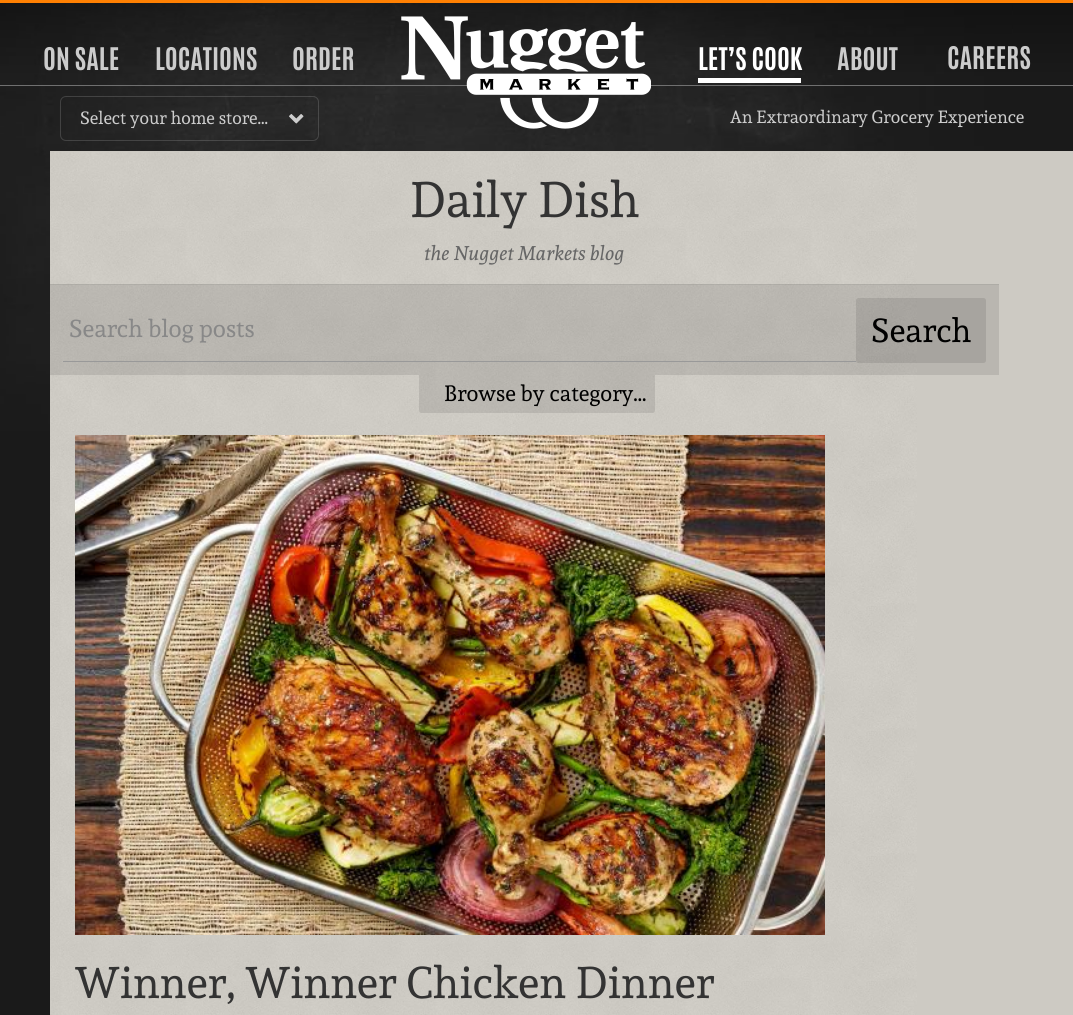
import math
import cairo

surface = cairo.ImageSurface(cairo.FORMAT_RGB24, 1073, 1015)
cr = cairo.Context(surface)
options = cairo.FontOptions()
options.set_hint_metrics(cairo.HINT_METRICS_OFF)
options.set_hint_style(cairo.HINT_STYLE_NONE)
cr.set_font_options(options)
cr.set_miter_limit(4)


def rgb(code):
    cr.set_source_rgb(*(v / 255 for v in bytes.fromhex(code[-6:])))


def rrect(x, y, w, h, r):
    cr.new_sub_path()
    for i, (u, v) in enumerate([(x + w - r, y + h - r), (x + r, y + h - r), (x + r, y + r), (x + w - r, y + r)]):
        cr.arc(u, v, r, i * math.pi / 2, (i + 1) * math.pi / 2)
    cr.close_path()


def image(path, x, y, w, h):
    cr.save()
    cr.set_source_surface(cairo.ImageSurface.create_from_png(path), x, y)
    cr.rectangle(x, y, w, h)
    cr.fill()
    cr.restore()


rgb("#1a1a1a")
cr.paint()
image("img/1.png", 0, 3, 1073, 428)
rgb("#ff8002")
cr.rectangle(0, 0, 1073, 3)
cr.fill()
rgb("#707070")
cr.rectangle(0, 85, 1073, 1)
cr.fill()
image("img/2.png", 401, 16, 250, 113)
rgb("#ffffff")
cr.rectangle(698, 78, 103, 5)
cr.fill()
rrect(60.5, 96.5, 258, 44, 5.5)
cr.set_source_rgba(1, 1, 1, 0.15)
cr.set_line_width(1)
cr.stroke()
image("img/3.png", 289, 114, 15, 10)
rgb("#cdcac3")
cr.rectangle(50, 151, 1023, 864)
cr.fill()
image("img/4.png", 50, 152, 867, 863)
cr.set_source_rgba(0, 0, 0, 0.15)
cr.rectangle(50, 284, 949, 1)
cr.fill()
cr.set_source_rgba(0, 0, 0, 0.1)
cr.rectangle(50, 285, 949, 90)
cr.fill()
rgb("#999999")
cr.rectangle(63, 361, 793, 1)
cr.fill()
cr.set_source_rgba(0, 0, 0, 0.1)
rrect(856, 298, 130, 65, 2.5)
cr.fill()
cr.new_path()
cr.move_to(419, 375)
cr.line_to(655, 375)
cr.line_to(655, 410.5)
cr.curve_to(655, 412, 654, 413, 652.5, 413)
cr.line_to(421.5, 413)
cr.curve_to(420, 413, 419, 412, 419, 410.5)
cr.close_path()
cr.fill()
image("img/5.png", 75, 435, 750, 500)
cr.select_font_face("Antonio", cairo.FONT_SLANT_NORMAL, cairo.FONT_WEIGHT_BOLD)
cr.set_font_size(26.5)
rgb("#cccccc")
for x, y, s in [
    (43, 70, "ON SALE"),
    (155, 70, "LOCATIONS"),
    (292, 70, "ORDER"),
]:
    cr.move_to(x, y)
    cr.show_text(s)
rgb("#ffffff")
cr.move_to(698, 70)
cr.show_text("LET’S COOK")
rgb("#cccccc")
cr.move_to(837, 70)
cr.show_text("ABOUT")
cr.move_to(947, 69)
cr.show_text("CAREERS")
cr.select_font_face("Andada")
cr.set_font_size(17.6)
cr.move_to(80, 124)
cr.show_text("Select your home store…")
cr.move_to(730, 123)
cr.show_text("An Extraordinary Grocery Experience")
cr.set_font_size(49.5)
rgb("#333333")
cr.move_to(410, 217)
cr.show_text("Daily Dish")
cr.select_font_face("Andada", cairo.FONT_SLANT_ITALIC)
cr.set_font_size(19.75)
rgb("#666666")
cr.move_to(424, 260)
cr.show_text("the Nugget Markets blog")
cr.select_font_face("Andada")
cr.set_font_size(24.25)
rgb("#888888")
cr.move_to(69, 337)
cr.show_text("Search blog posts")
cr.set_font_size(33)
rgb("#000000")
cr.move_to(871, 342)
cr.show_text("Search")
cr.set_font_size(22)
cr.move_to(444, 401)
cr.show_text("Browse by category…")
cr.set_font_size(44)
rgb("#333333")
cr.move_to(75, 998)
cr.show_text("Winner, Winner Chicken Dinner")
surface.write_to_png("page.png")
